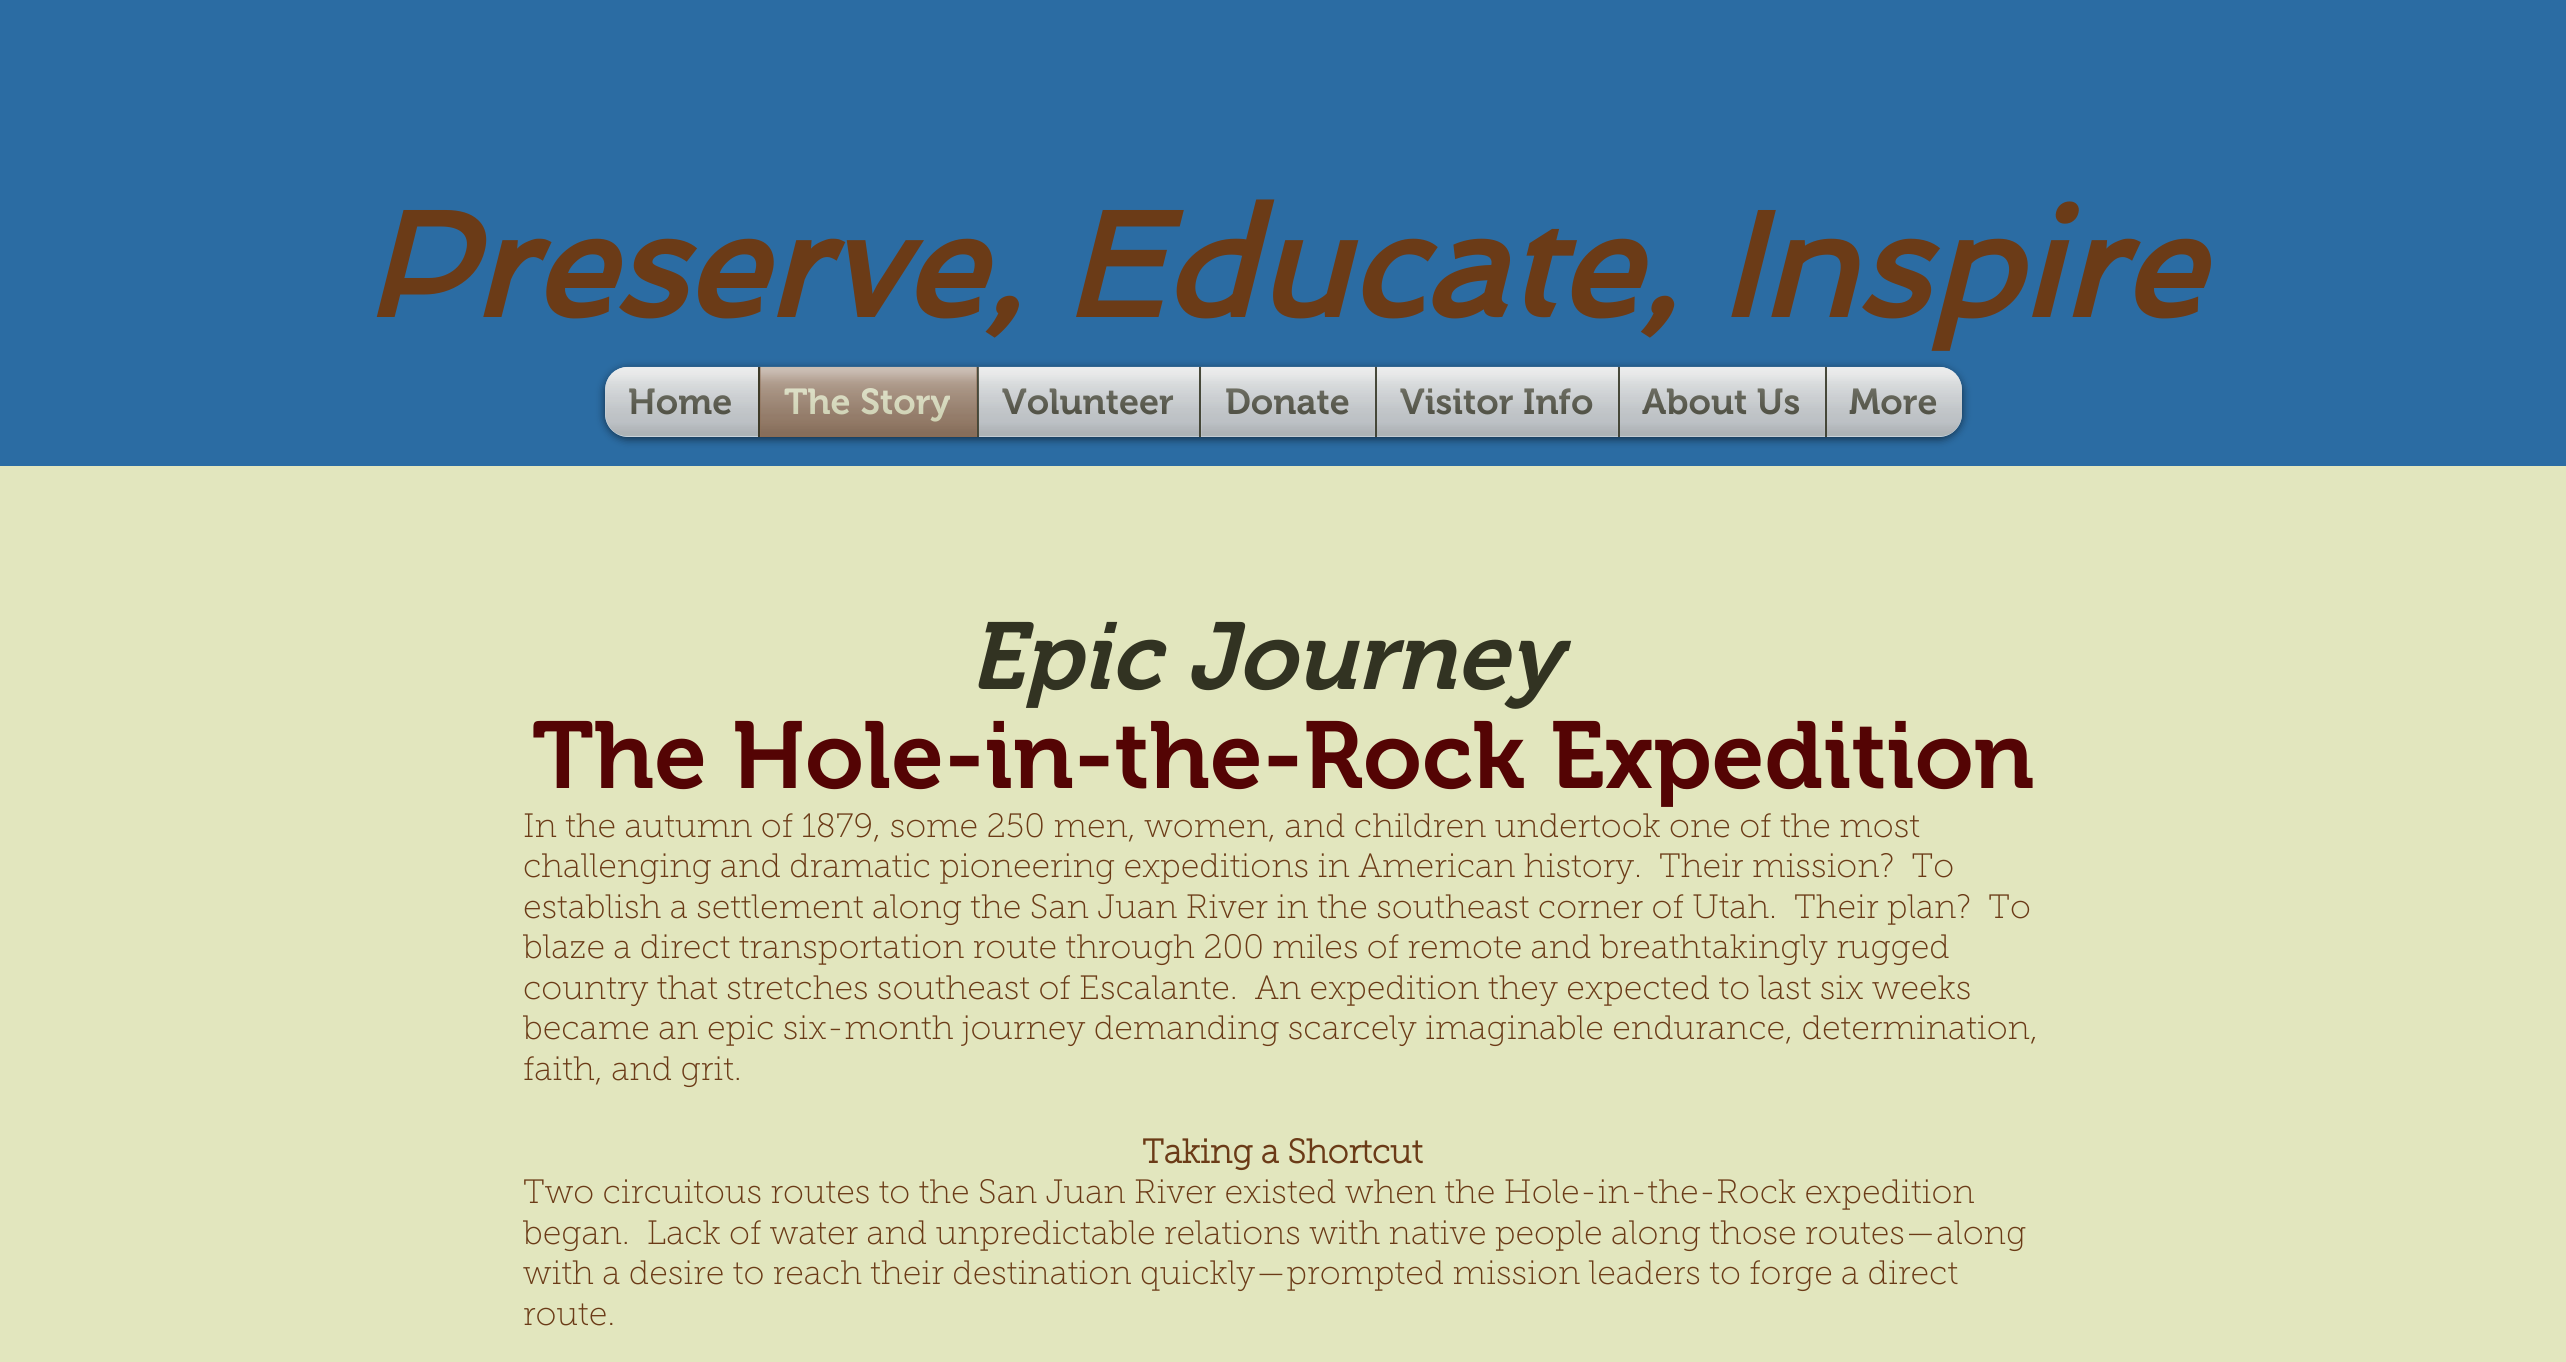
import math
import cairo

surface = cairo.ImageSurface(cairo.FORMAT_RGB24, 2566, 1362)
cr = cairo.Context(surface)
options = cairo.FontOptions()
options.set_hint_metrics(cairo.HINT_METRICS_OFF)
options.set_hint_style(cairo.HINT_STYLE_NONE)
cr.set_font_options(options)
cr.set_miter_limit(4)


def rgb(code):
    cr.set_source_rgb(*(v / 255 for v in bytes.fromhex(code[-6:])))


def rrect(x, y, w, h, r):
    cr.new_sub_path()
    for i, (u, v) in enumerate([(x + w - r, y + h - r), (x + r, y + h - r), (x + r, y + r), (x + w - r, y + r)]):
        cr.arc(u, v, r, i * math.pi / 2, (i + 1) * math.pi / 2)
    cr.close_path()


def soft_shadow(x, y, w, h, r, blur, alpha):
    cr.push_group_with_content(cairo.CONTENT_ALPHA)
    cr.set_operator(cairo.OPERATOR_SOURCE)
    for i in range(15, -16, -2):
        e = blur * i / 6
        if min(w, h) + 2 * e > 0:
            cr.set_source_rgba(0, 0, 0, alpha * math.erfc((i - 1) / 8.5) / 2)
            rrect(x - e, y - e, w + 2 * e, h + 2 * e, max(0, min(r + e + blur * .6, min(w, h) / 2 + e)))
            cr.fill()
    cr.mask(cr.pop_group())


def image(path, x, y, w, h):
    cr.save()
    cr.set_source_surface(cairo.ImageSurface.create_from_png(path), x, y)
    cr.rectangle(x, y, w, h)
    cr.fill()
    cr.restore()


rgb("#e2e6be")
cr.paint()
rgb("#2b6ca3")
cr.rectangle(0, 0, 2566, 466)
cr.fill()
cr.save()
cr.set_fill_rule(cairo.FILL_RULE_EVEN_ODD)
cr.new_path()
cr.move_to(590, 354)
cr.line_to(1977, 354)
cr.line_to(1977, 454)
cr.line_to(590, 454)
cr.close_path()
cr.move_to(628, 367)
cr.line_to(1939, 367)
cr.curve_to(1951.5, 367, 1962, 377.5, 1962, 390)
cr.line_to(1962, 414)
cr.curve_to(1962, 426.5, 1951.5, 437, 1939, 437)
cr.line_to(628, 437)
cr.curve_to(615.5, 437, 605, 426.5, 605, 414)
cr.line_to(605, 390)
cr.curve_to(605, 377.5, 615.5, 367, 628, 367)
cr.close_path()
cr.clip()
rgb("#000000")
soft_shadow(605, 369, 1357, 70, 23, 4.5, 0.6)
cr.restore()
cr.set_source_rgba(0.976, 0.945, 0.918, 0.51)
rrect(605, 367, 1357, 70, 23)
cr.fill()
image("img/1.png", 605, 366, 1357, 70)
image("img/2.png", 605, 367, 1357, 69)
cr.new_path()
cr.move_to(628, 367)
cr.line_to(758, 367)
cr.line_to(758, 437)
cr.line_to(628, 437)
cr.curve_to(615.5, 437, 605, 426.5, 605, 414)
cr.line_to(605, 390)
cr.curve_to(605, 377.5, 615.5, 367, 628, 367)
cr.close_path()
cr.fill()
rgb("#907057")
cr.rectangle(760, 367, 217, 70)
cr.fill()
rgb("#3e3b29")
cr.rectangle(758, 367, 2, 70)
cr.fill()
cr.set_source_rgba(0.976, 0.945, 0.918, 0.51)
cr.rectangle(977, 367, 222, 70)
cr.fill()
cr.set_source_rgba(0.196, 0.2, 0.133, 0.87)
cr.rectangle(977, 367, 2, 70)
cr.fill()
cr.set_source_rgba(0.976, 0.945, 0.918, 0.51)
cr.rectangle(1375, 367, 243, 70)
cr.fill()
cr.set_source_rgba(0.196, 0.2, 0.133, 0.87)
cr.rectangle(1375, 367, 2, 70)
cr.fill()
cr.set_source_rgba(0.976, 0.945, 0.918, 0.51)
cr.rectangle(1618, 367, 207, 70)
cr.fill()
cr.set_source_rgba(0.196, 0.2, 0.133, 0.87)
cr.rectangle(1618, 367, 2, 70)
cr.fill()
cr.set_source_rgba(0.976, 0.945, 0.918, 0.51)
cr.new_path()
cr.move_to(1825, 367)
cr.line_to(1939, 367)
cr.curve_to(1951.5, 367, 1962, 377.5, 1962, 390)
cr.line_to(1962, 414)
cr.curve_to(1962, 426.5, 1951.5, 437, 1939, 437)
cr.line_to(1825, 437)
cr.close_path()
cr.fill()
cr.set_source_rgba(0.196, 0.2, 0.133, 0.87)
cr.rectangle(1825, 367, 2, 70)
cr.fill()
cr.select_font_face("Spinnaker", cairo.FONT_SLANT_ITALIC, cairo.FONT_WEIGHT_BOLD)
cr.set_font_size(148.5)
rgb("#6b3b17")
cr.move_to(364, 317)
cr.show_text("Preserve, Educate, Inspire")
cr.select_font_face("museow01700 SemiBold")
cr.set_font_size(36)
rgb("#323322")
cr.move_to(628, 414)
cr.show_text("Home")
image("img/3.png", 605, 367, 153, 69)
image("img/4.png", 605, 367, 153, 69)
rgb("#e2e6be")
cr.move_to(784, 414)
cr.show_text("The Story")
image("img/5.png", 760, 366, 217, 70)
image("img/6.png", 760, 367, 217, 70)
rgb("#323322")
cr.move_to(1002, 414)
cr.show_text("Volunteer")
image("img/7.png", 978, 366, 222, 70)
image("img/8.png", 979, 367, 221, 70)
cr.set_source_rgba(0.976, 0.945, 0.918, 0.51)
cr.rectangle(1199, 367, 176, 70)
cr.fill()
cr.set_source_rgba(0.196, 0.2, 0.133, 0.87)
cr.rectangle(1199, 367, 2, 70)
cr.fill()
rgb("#323322")
cr.move_to(1225, 414)
cr.show_text("Donate")
image("img/9.png", 1201, 366, 174, 70)
image("img/10.png", 1201, 367, 174, 70)
cr.move_to(1400, 414)
cr.show_text("Visitor Info")
image("img/11.png", 1377, 366, 241, 70)
image("img/12.png", 1377, 367, 241, 70)
cr.move_to(1642, 414)
cr.show_text("About Us")
image("img/13.png", 1620, 366, 205, 70)
image("img/14.png", 1620, 367, 205, 70)
cr.move_to(1849, 414)
cr.show_text("More")
image("img/15.png", 1827, 367, 135, 69)
image("img/16.png", 1827, 367, 135, 69)
cr.select_font_face("museow01700 SemiBold", cairo.FONT_SLANT_ITALIC)
cr.set_font_size(94.5)
cr.move_to(968, 689)
cr.show_text("Epic Journey")
cr.select_font_face("museow01700 SemiBold")
rgb("#540404")
cr.move_to(532, 788)
cr.show_text("The Hole-in-the-Rock Expedition")
cr.select_font_face("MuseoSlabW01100 Thin")
cr.set_font_size(33.75)
rgb("#6b3b17")
for x, y, s in [
    (523, 837, "In the autumn of 1879, some 250 men, women, and children undertook one of the most"),
    (523, 877, "challenging and dramatic pioneering expeditions in American history.  Their mission?  To"),
    (523, 918, "establish a settlement along the San Juan River in the southeast corner of Utah.  Their plan?  To"),
    (523, 958, "blaze a direct transportation route through 200 miles of remote and breathtakingly rugged"),
    (523, 999, "country that stretches southeast of Escalante.  An expedition they expected to last six weeks"),
    (523, 1039, "became an epic six-month journey demanding scarcely imaginable endurance, determination,"),
    (523, 1080, "faith, and grit."),
]:
    cr.move_to(x, y)
    cr.show_text(s)
cr.select_font_face("MuseoSlabW01100", cairo.FONT_SLANT_NORMAL, cairo.FONT_WEIGHT_BOLD)
cr.move_to(1142, 1163)
cr.show_text("Taking a Shortcut")
cr.select_font_face("MuseoSlabW01100 Thin")
for x, y, s in [
    (523, 1203, "Two circuitous routes to the San Juan River existed when the Hole-in-the-Rock expedition"),
    (523, 1244, "began.  Lack of water and unpredictable relations with native people along those routes—along"),
    (523, 1284, "with a desire to reach their destination quickly—prompted mission leaders to forge a direct"),
    (523, 1325, "route."),
]:
    cr.move_to(x, y)
    cr.show_text(s)
surface.write_to_png("page.png")
